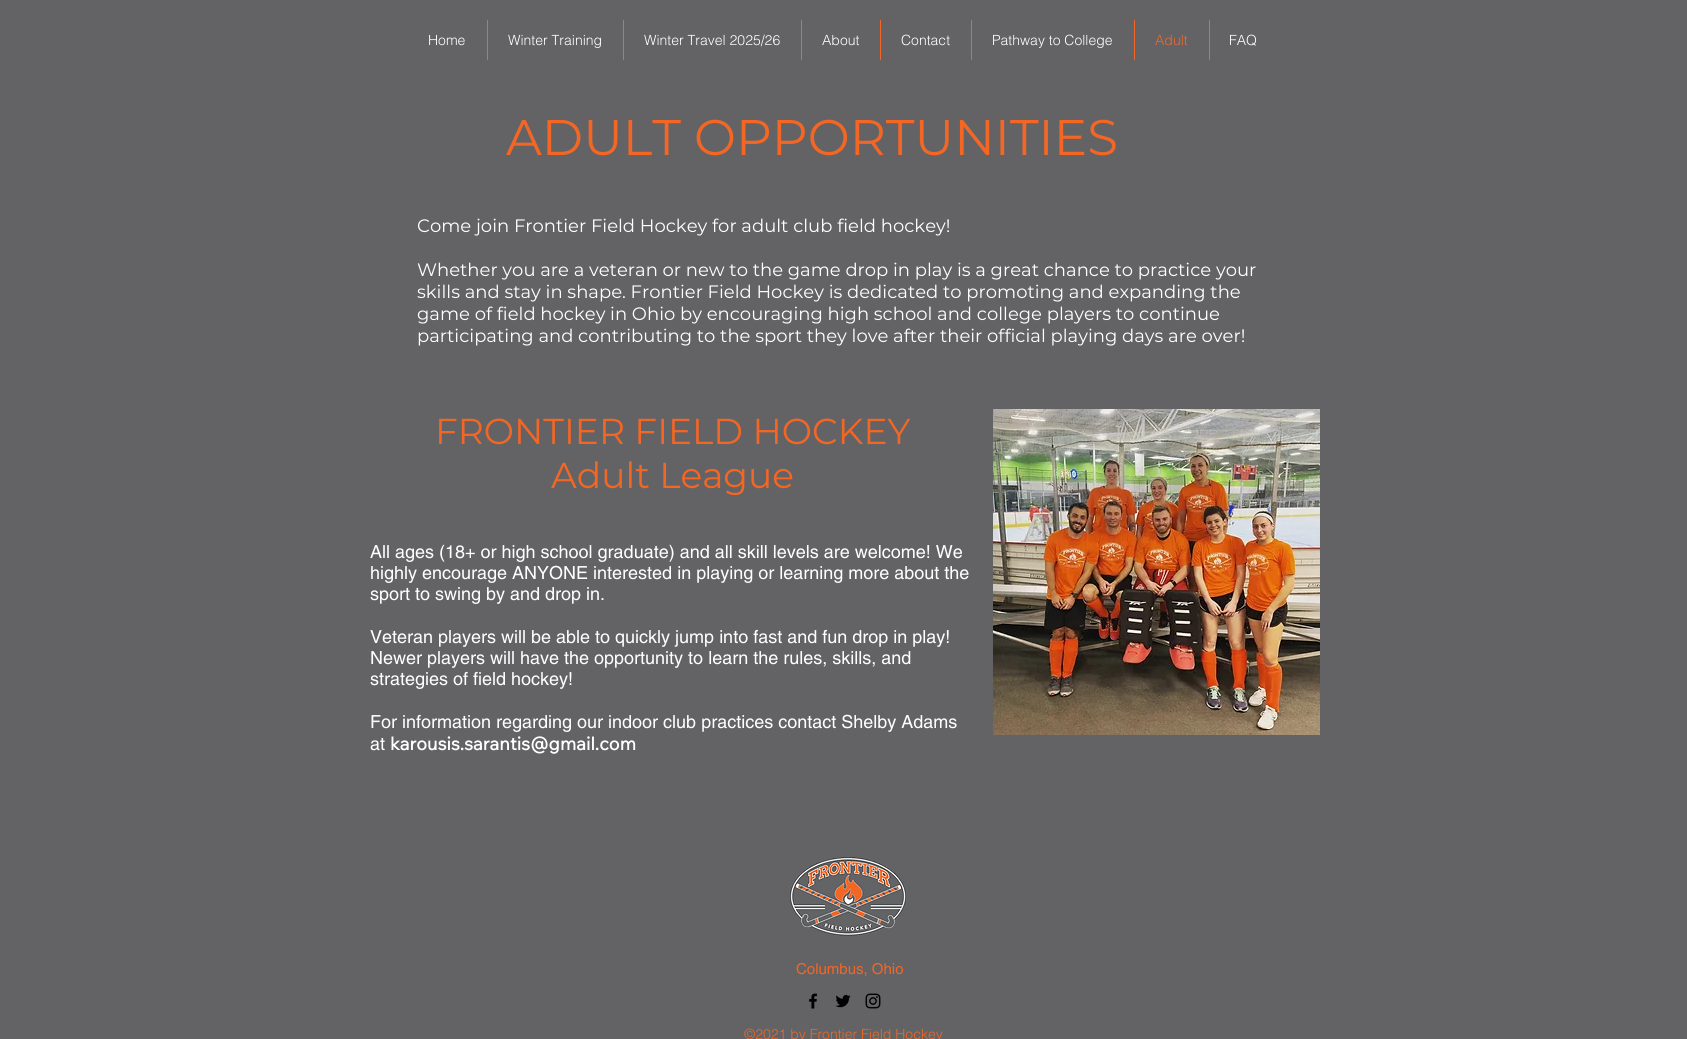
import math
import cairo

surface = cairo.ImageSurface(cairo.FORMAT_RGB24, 1687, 1039)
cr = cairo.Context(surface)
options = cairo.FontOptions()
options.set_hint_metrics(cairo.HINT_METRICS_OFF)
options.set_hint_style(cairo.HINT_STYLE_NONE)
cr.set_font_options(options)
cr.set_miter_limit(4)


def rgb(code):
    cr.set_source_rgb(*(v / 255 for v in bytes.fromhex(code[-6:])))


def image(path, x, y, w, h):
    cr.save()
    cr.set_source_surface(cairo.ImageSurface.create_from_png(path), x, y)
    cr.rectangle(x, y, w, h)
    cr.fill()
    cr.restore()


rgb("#636366")
cr.paint()
for x, y, w, h, color in [
    (487, 20, 1, 40, "#f36624"),
    (623, 20, 1, 40, "#f36624"),
    (801, 20, 1, 40, "#f36624"),
    (880, 20, 1, 40, "#f36624"),
    (971, 20, 1, 40, "#f36624"),
    (1134, 20, 1, 40, "#f36624"),
    (1209, 20, 1, 40, "#f36624"),
]:
    rgb(color)
    cr.rectangle(x, y, w, h)
    cr.fill()
image("img/1.png", 993, 409, 327, 326)
image("img/2.png", 790, 857, 117, 79)
image("img/3.png", 809, 993, 8, 16)
image("img/4.png", 835, 994, 16, 14)
image("img/5.png", 865, 993, 16, 16)
cr.select_font_face("helvetica Light")
cr.set_font_size(14)
rgb("#ffffff")
for x, y, s in [
    (428, 45, "Home"),
    (508, 45, "Winter Training"),
    (644, 45, "Winter Travel 2025/26"),
    (822, 45, "About"),
    (901, 45, "Contact"),
    (992, 45, "Pathway to College"),
]:
    cr.move_to(x, y)
    cr.show_text(s)
rgb("#f36624")
cr.move_to(1155, 45)
cr.show_text("Adult")
rgb("#ffffff")
cr.move_to(1229, 45)
cr.show_text("FAQ")
cr.select_font_face("Montserrat")
cr.set_font_size(50)
rgb("#f36624")
cr.move_to(506, 155)
cr.show_text("ADULT OPPORTUNITIES")
cr.set_font_size(18)
rgb("#ffffff")
for x, y, s in [
    (417, 232, "Come join Frontier Field Hockey for adult club field hockey!"),
    (417, 276, "Whether you are a veteran or new to the game drop in play is a great chance to practice your"),
    (417, 298, "skills and stay in shape. Frontier Field Hockey is dedicated to promoting and expanding the"),
    (417, 320, "game of field hockey in Ohio by encouraging high school and college players to continue"),
    (417, 342, "participating and contributing to the sport they love after their official playing days are over!"),
]:
    cr.move_to(x, y)
    cr.show_text(s)
cr.set_font_size(36)
rgb("#f36624")
cr.move_to(435, 444)
cr.show_text("FRONTIER FIELD HOCKEY")
cr.move_to(551, 488)
cr.show_text("Adult League")
cr.select_font_face("helvetica")
cr.set_font_size(18)
rgb("#ffffff")
for x, y, s in [
    (370, 558, "All ages (18+ or high school graduate) and all skill levels are welcome! We"),
    (370, 579, "highly encourage ANYONE interested in playing or learning more about the"),
    (370, 600, "sport to swing by and drop in."),
    (370, 643, "Veteran players will be able to quickly jump into fast and fun drop in play!"),
    (370, 664, "Newer players will have the opportunity to learn the rules, skills, and"),
    (370, 685, "strategies of field hockey!"),
    (370, 728, "For information regarding our indoor club practices contact Shelby Adams"),
    (370, 750, "at"),
]:
    cr.move_to(x, y)
    cr.show_text(s)
cr.select_font_face("Wix Madefor Text", cairo.FONT_SLANT_NORMAL, cairo.FONT_WEIGHT_BOLD)
cr.move_to(390, 750)
cr.show_text("karousis.sarantis@gmail.com")
cr.select_font_face("helvetica")
cr.set_font_size(15)
rgb("#f36624")
cr.move_to(796, 974)
cr.show_text("Columbus, Ohio")
cr.select_font_face("helvetica Light")
cr.set_font_size(14)
cr.move_to(744, 1039)
cr.show_text("©2021 by Frontier Field Hockey")
surface.write_to_png("page.png")
